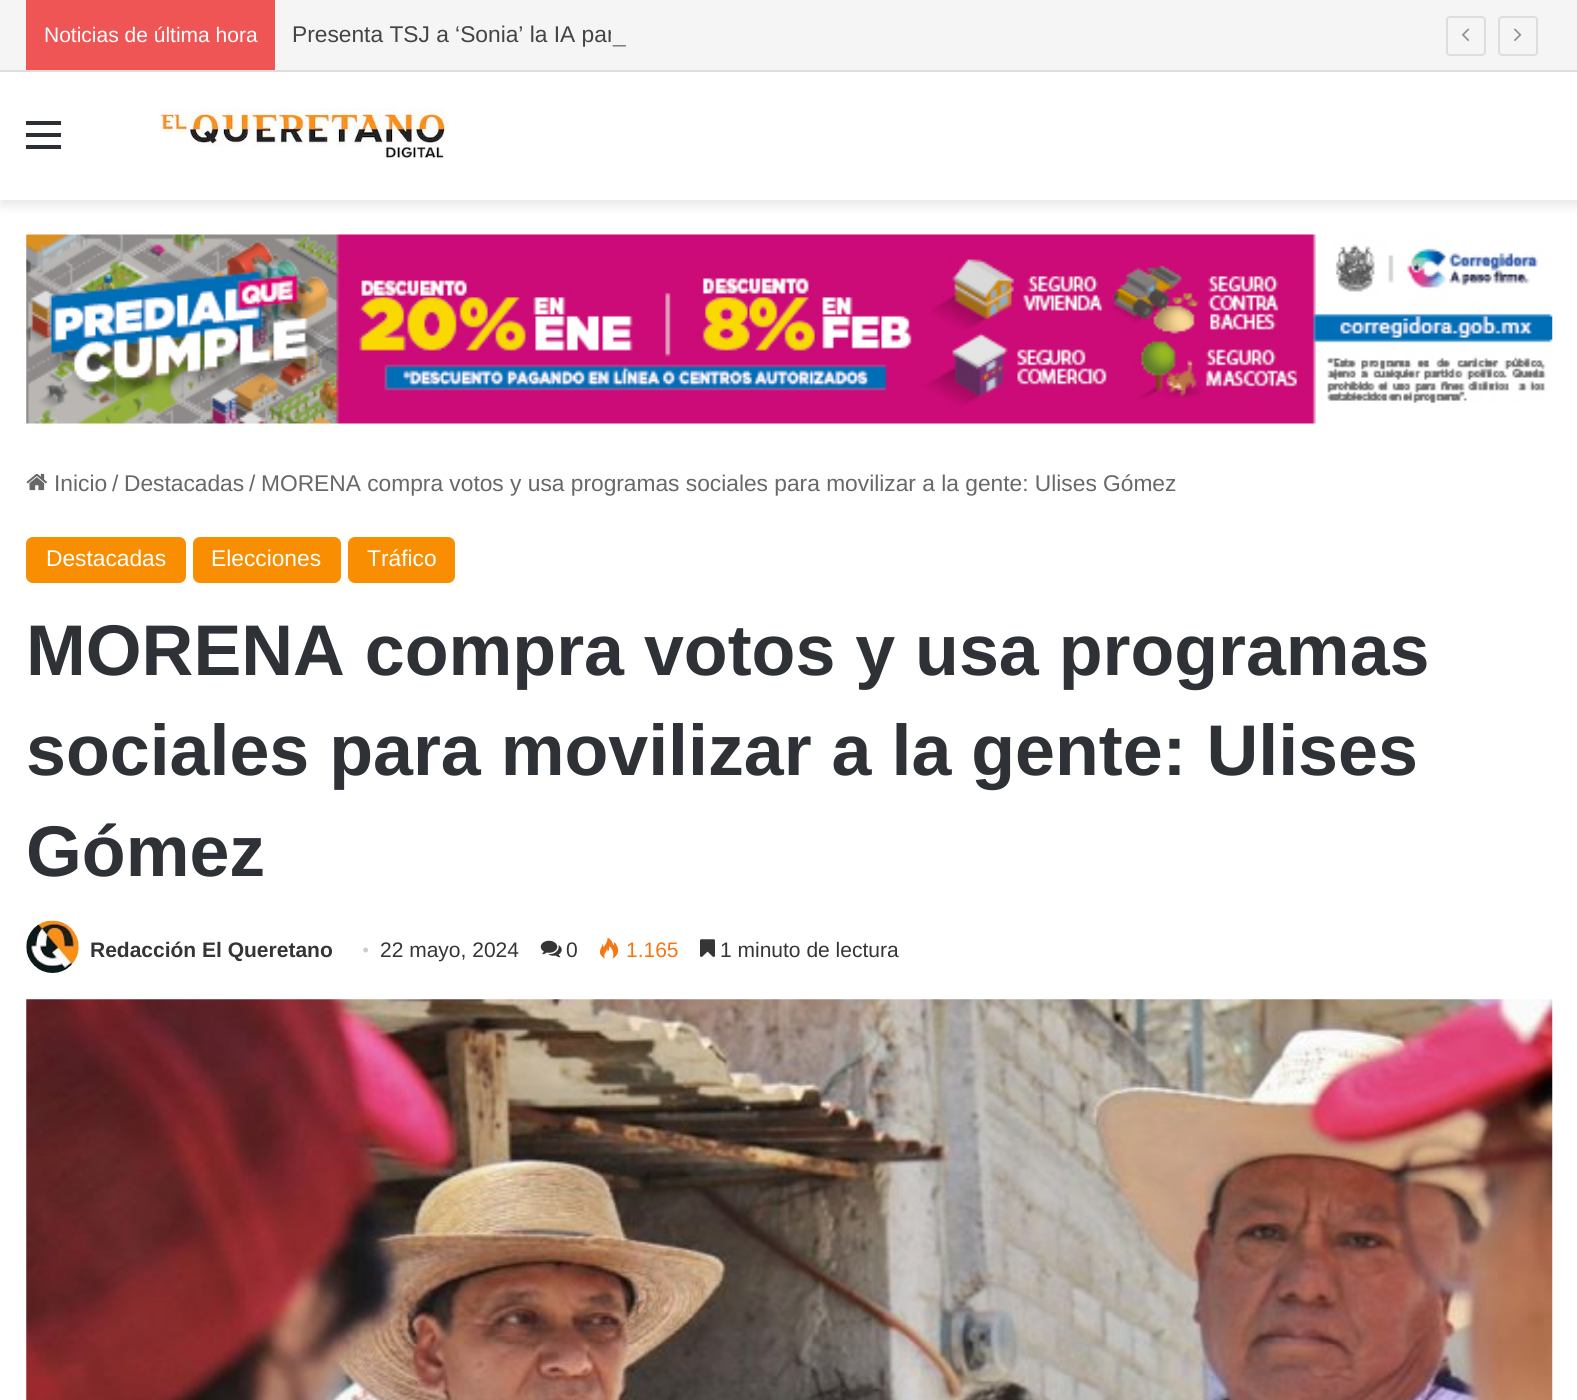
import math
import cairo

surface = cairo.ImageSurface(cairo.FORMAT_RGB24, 1577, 1400)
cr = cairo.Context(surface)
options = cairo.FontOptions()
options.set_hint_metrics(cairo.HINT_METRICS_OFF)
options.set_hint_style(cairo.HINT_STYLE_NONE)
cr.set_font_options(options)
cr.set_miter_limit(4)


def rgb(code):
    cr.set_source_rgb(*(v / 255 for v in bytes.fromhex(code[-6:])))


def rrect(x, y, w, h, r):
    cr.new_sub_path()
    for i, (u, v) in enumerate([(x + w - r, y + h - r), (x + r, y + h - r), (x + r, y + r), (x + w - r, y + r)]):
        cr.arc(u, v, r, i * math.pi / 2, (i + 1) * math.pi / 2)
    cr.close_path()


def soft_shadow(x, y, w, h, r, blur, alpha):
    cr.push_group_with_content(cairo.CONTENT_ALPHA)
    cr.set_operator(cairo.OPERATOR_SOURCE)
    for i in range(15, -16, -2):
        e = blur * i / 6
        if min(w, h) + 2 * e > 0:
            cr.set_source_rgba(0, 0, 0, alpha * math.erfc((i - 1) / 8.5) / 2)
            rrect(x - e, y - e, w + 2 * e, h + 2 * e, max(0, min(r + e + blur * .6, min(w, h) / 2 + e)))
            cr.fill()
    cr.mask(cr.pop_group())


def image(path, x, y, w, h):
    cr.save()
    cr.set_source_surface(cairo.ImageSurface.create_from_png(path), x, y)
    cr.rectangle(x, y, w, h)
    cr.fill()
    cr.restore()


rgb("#ffffff")
cr.paint()
rgb("#000000")
soft_shadow(0, 77, 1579, 128, 0, 6, 0.1)
for x, y, w, h, color in [
    (0, 0, 1577, 70, "#f5f5f5"),
    (0, 70, 1577, 2, "#dddddd"),
    (26, 0, 249, 70, "#f05555"),
]:
    rgb(color)
    cr.rectangle(x, y, w, h)
    cr.fill()
rrect(1447, 17, 38, 38, 3)
rgb("#dddddd")
cr.stroke()
image("img/1.png", 1461, 28, 9, 14)
rrect(1499, 17, 38, 38, 3)
cr.stroke()
image("img/2.png", 1514, 28, 8, 13)
for x, y, w, h, color in [
    (0, 72, 1577, 128, "#ffffff"),
    (26, 133, 35, 4, "#2c2f34"),
    (26, 121, 35, 4, "#2c2f34"),
    (26, 145, 35, 4, "#2c2f34"),
]:
    rgb(color)
    cr.rectangle(x, y, w, h)
    cr.fill()
image("img/3.png", 159, 108, 287, 51)
image("img/4.png", 26, 234, 1527, 190)
image("img/5.png", 26, 473, 21, 18)
rgb("#f98e03")
rrect(26, 537, 160, 46, 7)
cr.fill()
rrect(193, 537, 148, 46, 7)
cr.fill()
rrect(348, 537, 107, 46, 7)
cr.fill()
image("img/6.png", 26, 920, 53, 53)
image("img/7.png", 540, 940, 22, 18)
image("img/8.png", 600, 937, 19, 22)
image("img/9.png", 700, 939, 15, 18)
image("img/10.png", 26, 999, 1527, 401)
cr.select_font_face("Arimo")
cr.set_font_size(21)
rgb("#ffffff")
cr.move_to(44, 42)
cr.show_text("Noticias de última hora")
cr.set_font_size(22.75)
rgb("#444444")
cr.move_to(292, 42)
cr.show_text("Presenta TSJ a ‘Sonia’ la IA par")
rgb("#f5f5f5")
cr.rectangle(611, 29, 4, 5)
cr.fill()
rgb("#777777")
cr.move_to(613, 42)
cr.show_text("_")
rgb("#686868")
for x, y, s in [
    (54, 491, "Inicio"),
    (112, 491, "/"),
    (124, 491, "Destacadas"),
    (249, 491, "/"),
    (261, 491, "MORENA compra votos y usa programas sociales para movilizar a la gente: Ulises Gómez"),
]:
    cr.move_to(x, y)
    cr.show_text(s)
rgb("#ffffff")
for x, y, s in [
    (46, 566, "Destacadas"),
    (211, 566, "Elecciones"),
    (367, 566, "Tráfico"),
]:
    cr.move_to(x, y)
    cr.show_text(s)
cr.select_font_face("Arimo", cairo.FONT_SLANT_NORMAL, cairo.FONT_WEIGHT_BOLD)
cr.set_font_size(71.75)
rgb("#2e3136")
for x, y, s in [
    (26, 675, "MORENA compra votos y usa programas"),
    (26, 775, "sociales para movilizar a la gente: Ulises"),
    (26, 876, "Gómez"),
]:
    cr.move_to(x, y)
    cr.show_text(s)
cr.set_font_size(21)
rgb("#353535")
cr.move_to(90, 957)
cr.show_text("Redacción El Queretano")
cr.select_font_face("Liberation Serif")
rgb("#cdcdcd")
cr.move_to(362, 957)
cr.show_text("•")
cr.select_font_face("Arimo")
rgb("#353535")
cr.move_to(380, 957)
cr.show_text("22 mayo, 2024")
cr.move_to(566, 957)
cr.show_text("0")
rgb("#f47614")
cr.move_to(626, 957)
cr.show_text("1.165")
rgb("#353535")
cr.move_to(720, 957)
cr.show_text("1 minuto de lectura")
surface.write_to_png("page.png")
